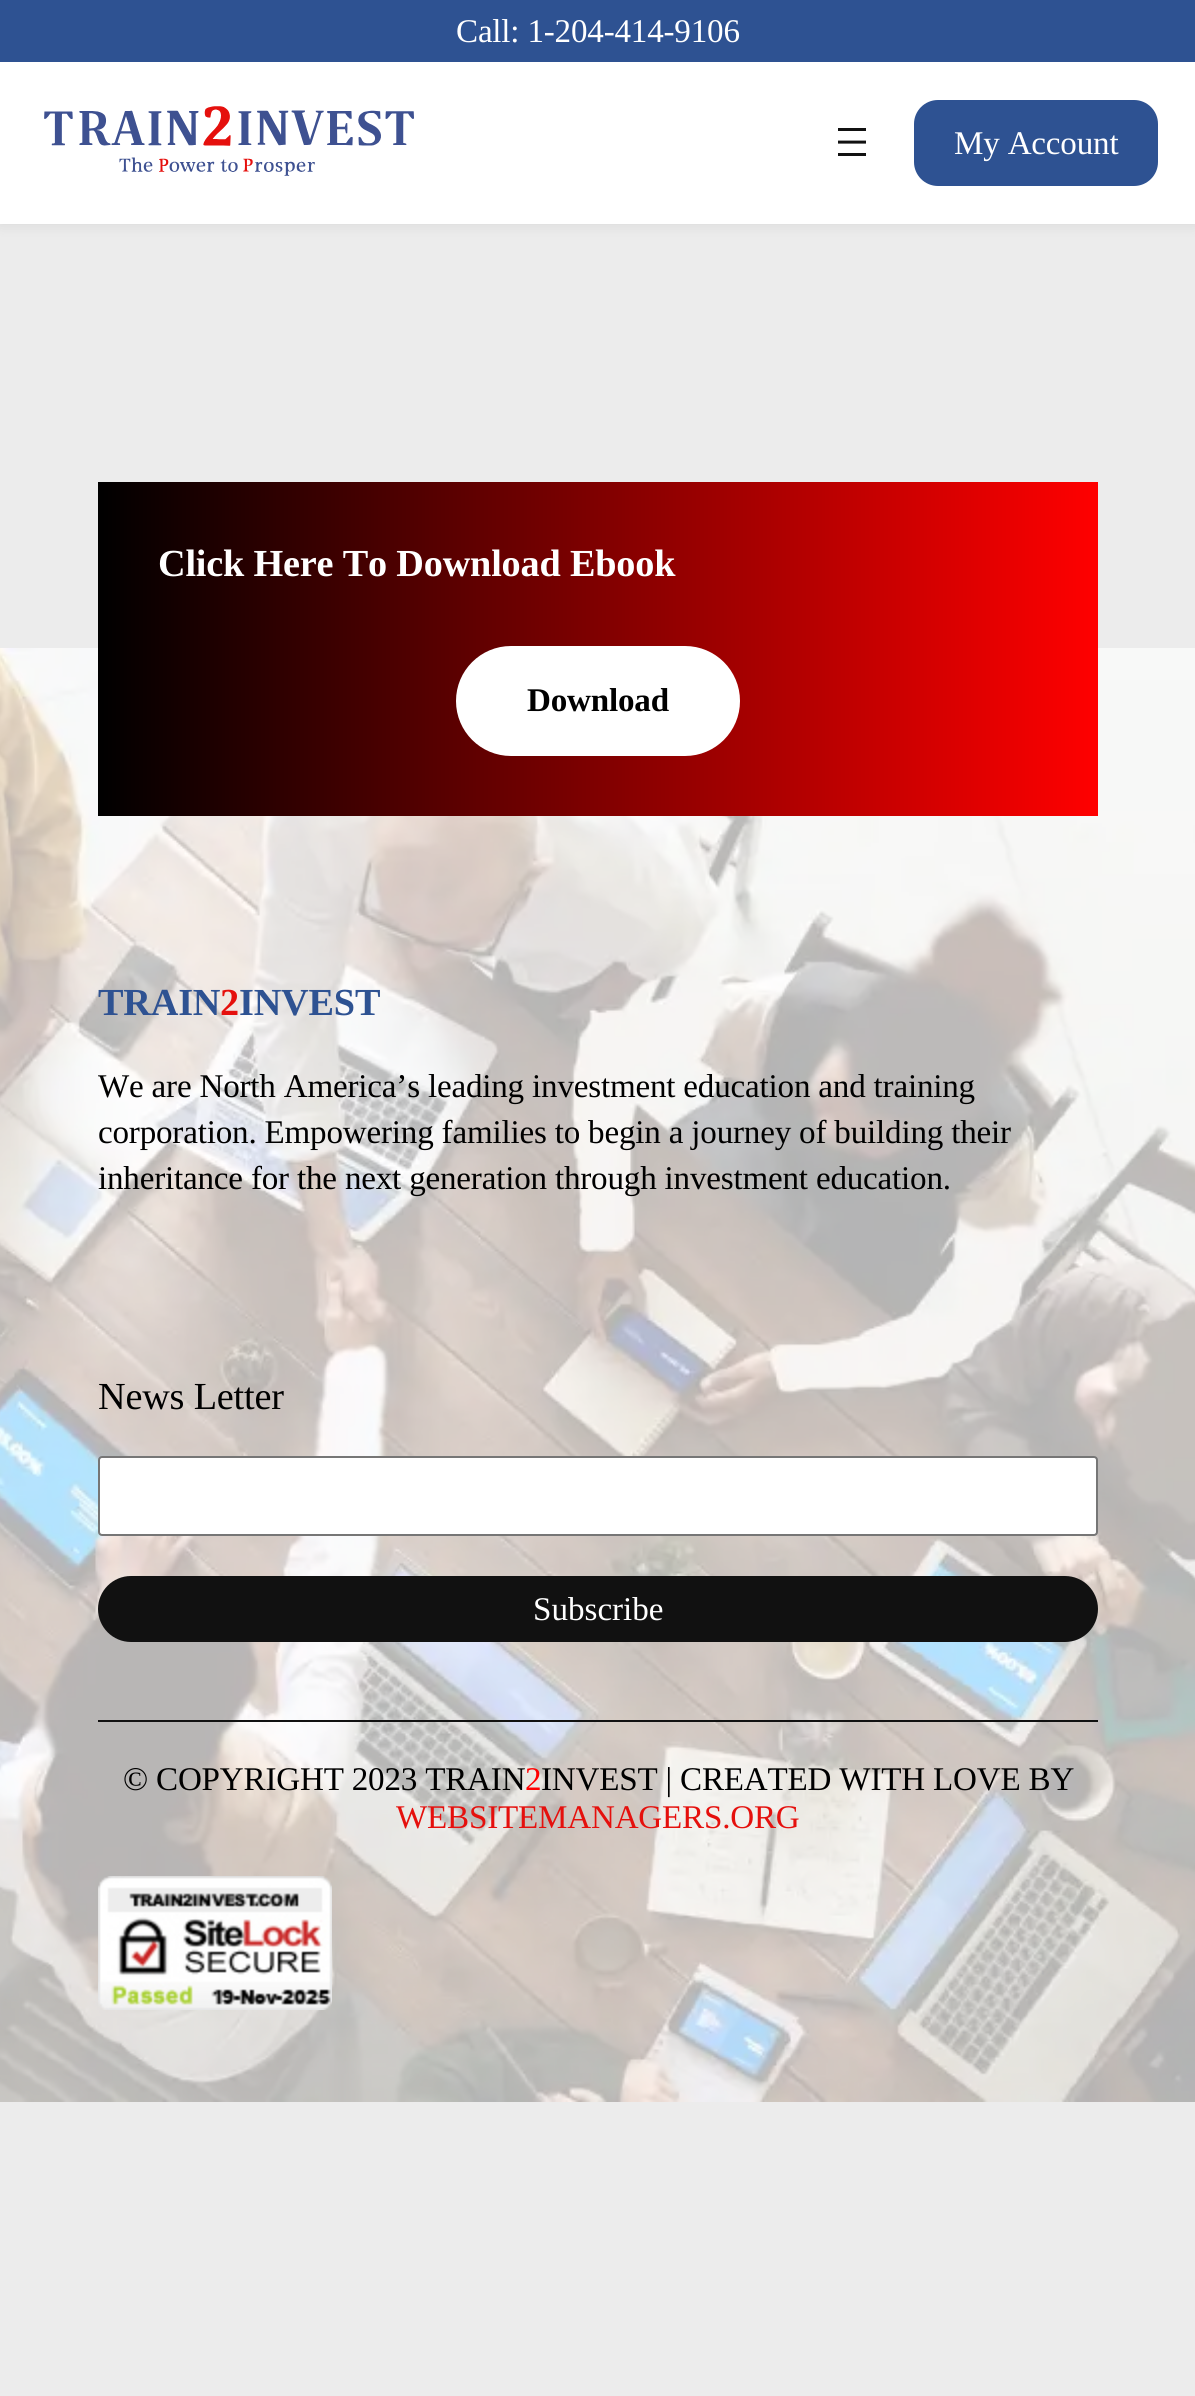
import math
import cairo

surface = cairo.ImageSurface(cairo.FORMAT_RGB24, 1195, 2396)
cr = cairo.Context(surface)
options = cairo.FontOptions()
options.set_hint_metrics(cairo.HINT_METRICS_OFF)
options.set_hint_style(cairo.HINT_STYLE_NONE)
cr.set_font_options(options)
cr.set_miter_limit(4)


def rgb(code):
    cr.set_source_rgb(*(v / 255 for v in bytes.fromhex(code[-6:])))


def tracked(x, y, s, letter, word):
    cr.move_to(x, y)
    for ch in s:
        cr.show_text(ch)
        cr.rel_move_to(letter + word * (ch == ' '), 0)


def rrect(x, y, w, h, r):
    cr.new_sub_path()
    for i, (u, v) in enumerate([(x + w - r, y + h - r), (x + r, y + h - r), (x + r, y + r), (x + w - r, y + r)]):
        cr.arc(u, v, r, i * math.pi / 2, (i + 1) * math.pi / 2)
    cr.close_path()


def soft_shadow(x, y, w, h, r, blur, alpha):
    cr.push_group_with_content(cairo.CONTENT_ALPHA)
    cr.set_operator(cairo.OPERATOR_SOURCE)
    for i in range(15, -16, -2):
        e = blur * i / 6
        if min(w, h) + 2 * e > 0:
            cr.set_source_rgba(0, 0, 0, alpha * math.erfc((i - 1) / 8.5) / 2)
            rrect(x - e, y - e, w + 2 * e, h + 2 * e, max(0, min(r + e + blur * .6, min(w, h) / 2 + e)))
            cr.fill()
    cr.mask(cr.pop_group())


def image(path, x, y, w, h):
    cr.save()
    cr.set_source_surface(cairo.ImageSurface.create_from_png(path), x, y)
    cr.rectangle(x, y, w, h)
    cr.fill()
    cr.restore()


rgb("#ececec")
cr.paint()
rgb("#000000")
soft_shadow(0, 0, 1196, 224, 0, 7, 0.1)
rgb("#2e5292")
cr.rectangle(0, 0, 1195, 62)
cr.fill()
rgb("#ffffff")
cr.rectangle(0, 62, 1195, 162)
cr.fill()
image("img/1.png", 44, 106, 370, 70)
image("img/2.png", 838, 128, 28, 28)
rgb("#2e5292")
rrect(914, 100, 244, 86, 24)
cr.fill()
image("img/4.png", 0, 648, 1195, 1454)
gradient = cairo.LinearGradient(98, 648, 1098, 648)
gradient.add_color_stop_rgba(0, 0, 0, 0, 1)
gradient.add_color_stop_rgba(1, 1, 0, 0, 1)
cr.set_source(gradient)
cr.rectangle(98, 482, 1000, 334)
cr.fill()
rgb("#ffffff")
rrect(456, 646, 284, 110, 55)
cr.fill()
rrect(99, 1457, 998, 78, 3)
cr.fill_preserve()
rgb("#767676")
cr.stroke()
rgb("#111111")
rrect(98, 1576, 1000, 66, 33)
cr.fill()
cr.rectangle(98, 1720, 1000, 2)
cr.fill()
image("img/3.png", 98, 1876, 234, 134)
cr.select_font_face("Liberation Serif")
cr.set_font_size(33.1)
rgb("#ffffff")
tracked(456, 42, "Call: 1-204-414-9106", -0.2, 0)
tracked(954, 154, "My Account", -0.2, 0)
cr.select_font_face("Liberation Serif", cairo.FONT_SLANT_NORMAL, cairo.FONT_WEIGHT_BOLD)
cr.set_font_size(38.25)
tracked(158, 576, "Click Here To Download Ebook", -0.2, 0)
cr.set_font_size(33.1)
rgb("#000000")
tracked(527, 711, "Download", -0.2, 0)
cr.set_font_size(38.25)
rgb("#2e5292")
tracked(98, 1015, "TRAIN", -0.2, 0)
rgb("#e5100d")
tracked(220, 1015, "2", -0.2, 0)
rgb("#2e5292")
tracked(239, 1015, "INVEST", -0.2, 0)
cr.select_font_face("Liberation Serif")
cr.set_font_size(33.1)
rgb("#000000")
for x, y, s in [
    (98, 1097, "We are North America’s leading investment education and training"),
    (98, 1143, "corporation. Empowering families to begin a journey of building their"),
    (98, 1189, "inheritance for the next generation through investment education."),
]:
    tracked(x, y, s, -0.2, 0)
cr.set_font_size(38.25)
tracked(98, 1409, "News Letter", -0.2, 0)
cr.set_font_size(33.1)
rgb("#ffffff")
cr.move_to(533, 1620)
cr.show_text("Subscribe")
rgb("#000000")
tracked(123, 1790, "© COPYRIGHT 2023 TRAIN", -0.2, 0)
rgb("#ff0000")
tracked(525, 1790, "2", -0.2, 0)
rgb("#000000")
tracked(541, 1790, "INVEST | CREATED WITH LOVE BY", -0.2, 0)
rgb("#e5100d")
tracked(396, 1828, "WEBSITEMANAGERS.ORG", -0.2, 0)
surface.write_to_png("page.png")
